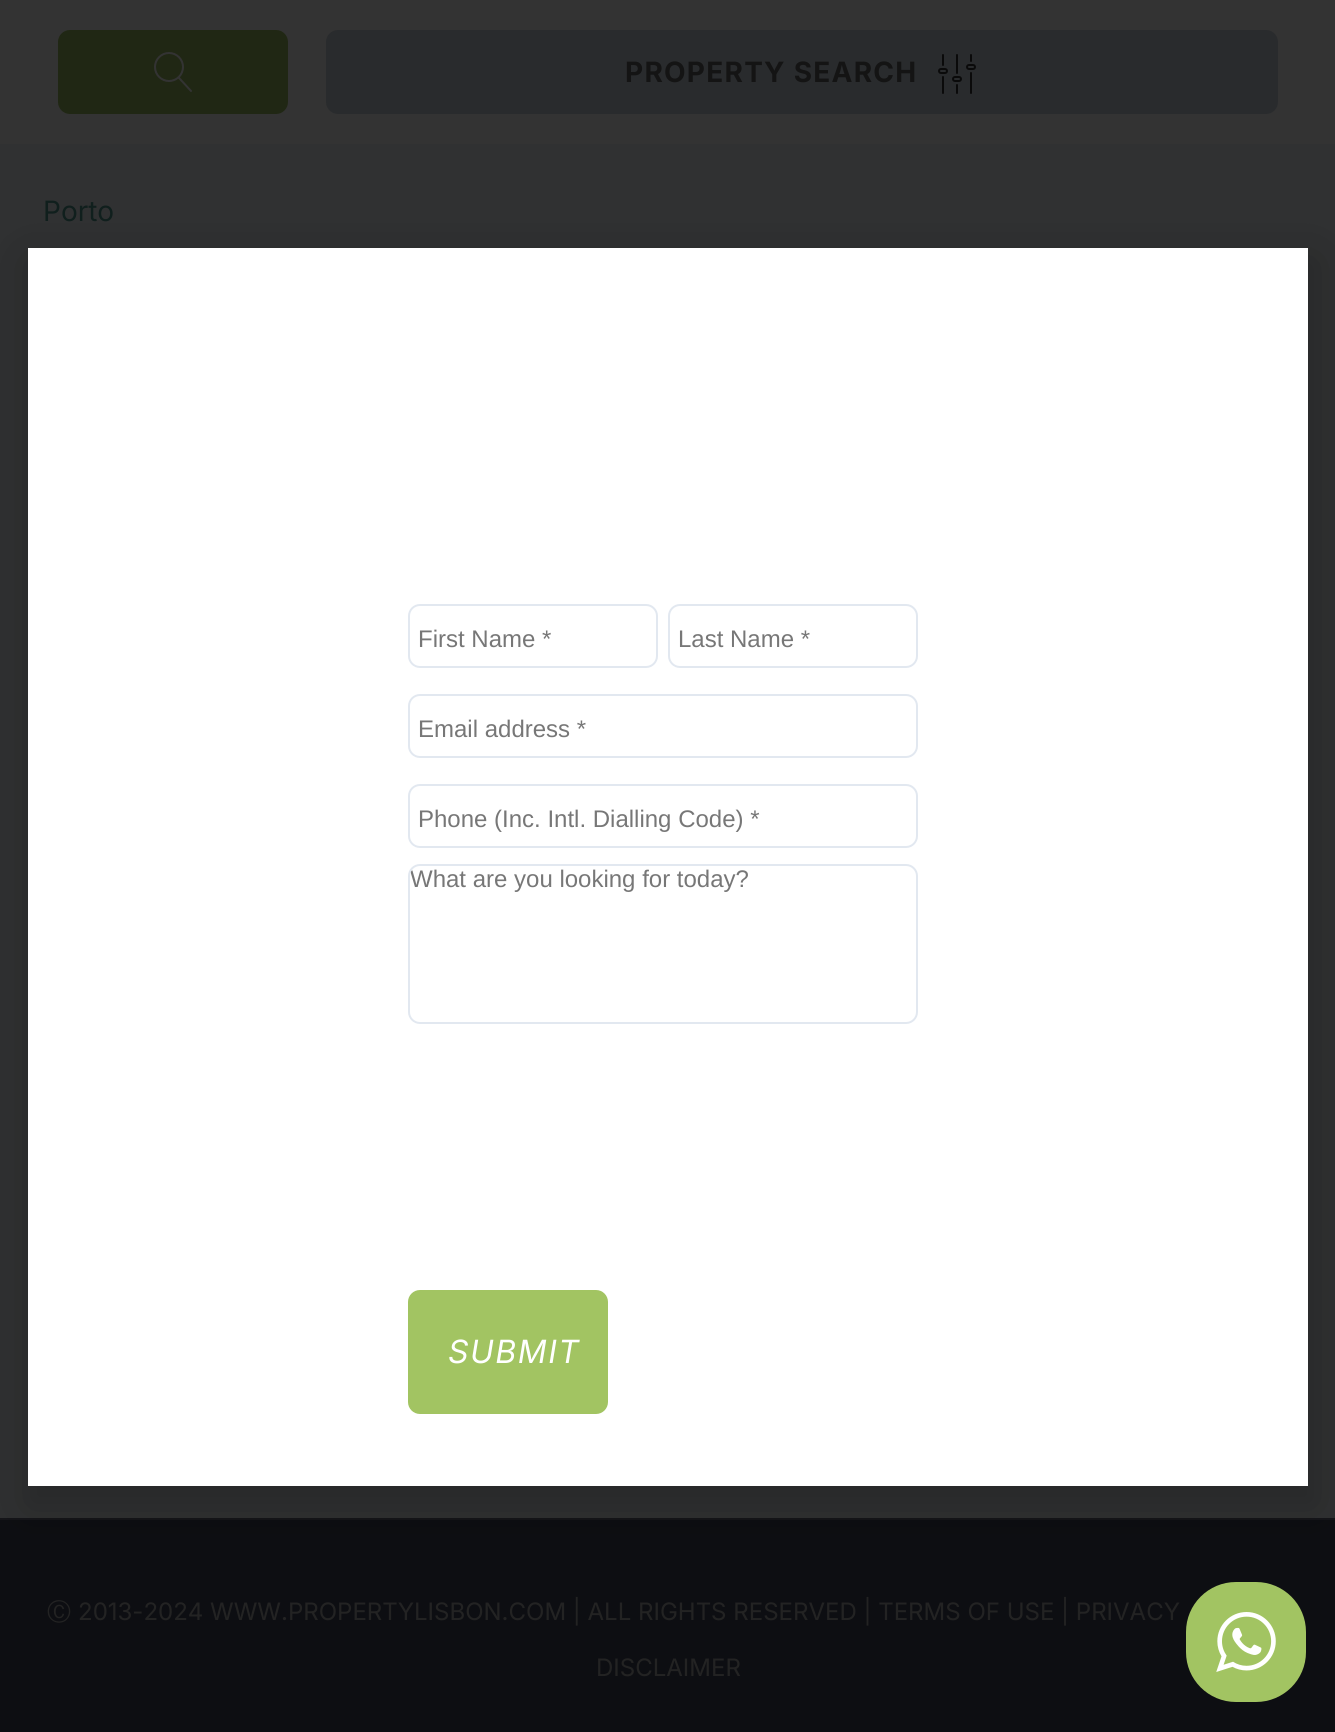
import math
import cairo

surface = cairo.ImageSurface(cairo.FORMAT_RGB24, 1335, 1732)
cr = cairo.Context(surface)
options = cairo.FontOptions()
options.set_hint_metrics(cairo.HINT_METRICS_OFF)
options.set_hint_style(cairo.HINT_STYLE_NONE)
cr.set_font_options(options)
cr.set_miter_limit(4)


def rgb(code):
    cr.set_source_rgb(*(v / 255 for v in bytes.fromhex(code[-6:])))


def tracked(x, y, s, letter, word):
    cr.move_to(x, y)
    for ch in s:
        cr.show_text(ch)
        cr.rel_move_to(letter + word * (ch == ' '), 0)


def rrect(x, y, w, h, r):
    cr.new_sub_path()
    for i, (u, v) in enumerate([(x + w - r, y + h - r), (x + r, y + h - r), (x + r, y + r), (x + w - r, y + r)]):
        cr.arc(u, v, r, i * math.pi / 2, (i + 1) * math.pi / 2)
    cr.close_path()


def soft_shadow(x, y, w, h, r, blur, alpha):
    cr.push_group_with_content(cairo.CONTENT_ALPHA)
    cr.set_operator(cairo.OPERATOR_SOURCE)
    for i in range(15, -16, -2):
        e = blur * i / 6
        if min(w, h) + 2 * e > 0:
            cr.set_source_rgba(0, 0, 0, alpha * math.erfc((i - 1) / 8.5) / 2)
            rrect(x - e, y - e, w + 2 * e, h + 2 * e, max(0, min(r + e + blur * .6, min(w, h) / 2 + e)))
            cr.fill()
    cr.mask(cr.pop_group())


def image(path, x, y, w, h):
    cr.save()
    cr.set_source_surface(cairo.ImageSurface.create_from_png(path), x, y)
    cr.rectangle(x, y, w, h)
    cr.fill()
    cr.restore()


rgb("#303132")
cr.paint()
rgb("#333333")
cr.rectangle(0, 0, 1335, 144)
cr.fill()
rgb("#202714")
rrect(58, 30, 230, 84, 12)
cr.fill()
image("img/1.png", 154, 52, 38, 40)
rgb("#292b2d")
rrect(326, 30, 952, 84, 12)
cr.fill()
image("img/2.png", 938, 54, 38, 40)
rgb("#0d0e12")
cr.rectangle(0, 1520, 1335, 212)
cr.fill()
rgb("#151519")
cr.rectangle(0, 1518, 1335, 2)
cr.fill()
rgb("#a2c462")
rrect(1186, 1582, 120, 120, 50)
cr.fill()
image("img/3.png", 1216, 1612, 60, 60)
rgb("#000000")
soft_shadow(26, 258, 1292, 1250, 0, 23, 0.2)
rgb("#ffffff")
cr.rectangle(28, 248, 1280, 1238)
cr.fill()
rrect(409, 605, 248, 62, 11)
rgb("#e2e8f0")
cr.stroke()
rrect(669, 605, 248, 62, 11)
cr.stroke()
rrect(409, 695, 508, 62, 11)
cr.stroke()
rrect(409, 785, 508, 62, 11)
cr.stroke()
rrect(409, 865, 508, 158, 11)
cr.stroke()
rgb("#a2c462")
rrect(408, 1290, 200, 124, 12)
cr.fill()
cr.select_font_face("Inter", cairo.FONT_SLANT_NORMAL, cairo.FONT_WEIGHT_BOLD)
cr.set_font_size(28)
rgb("#141414")
tracked(625, 82, "PROPERTY SEARCH", 1.25, 0)
cr.select_font_face("Inter")
rgb("#101f1d")
cr.move_to(43, 221)
cr.show_text("Porto")
cr.select_font_face("WenQuanYi Zen Hei Medium")
cr.set_font_size(24)
rgb("#232323")
cr.move_to(47, 1620)
cr.show_text("Ⓒ")
cr.select_font_face("Inter")
cr.move_to(78, 1620)
cr.show_text("2013-2024 WWW.PROPERTYLISBON.COM | ALL RIGHTS RESERVED | TERMS OF USE | PRIVACY")
cr.move_to(596, 1676)
cr.show_text("DISCLAIMER")
cr.select_font_face("Liberation Sans")
rgb("#777777")
for x, y, s in [
    (418, 647, "First Name *"),
    (678, 647, "Last Name *"),
    (418, 737, "Email address *"),
    (418, 827, "Phone (Inc. Intl. Dialling Code) *"),
]:
    cr.move_to(x, y)
    cr.show_text(s)
cr.save()
rrect(410, 866, 506, 156, 10)
cr.clip()
cr.move_to(410, 887)
cr.show_text("What are you looking for today?")
cr.restore()
cr.select_font_face("Inter", cairo.FONT_SLANT_ITALIC)
cr.set_font_size(32)
rgb("#ffffff")
tracked(448, 1363, "SUBMIT", 1.5, 0)
surface.write_to_png("page.png")
